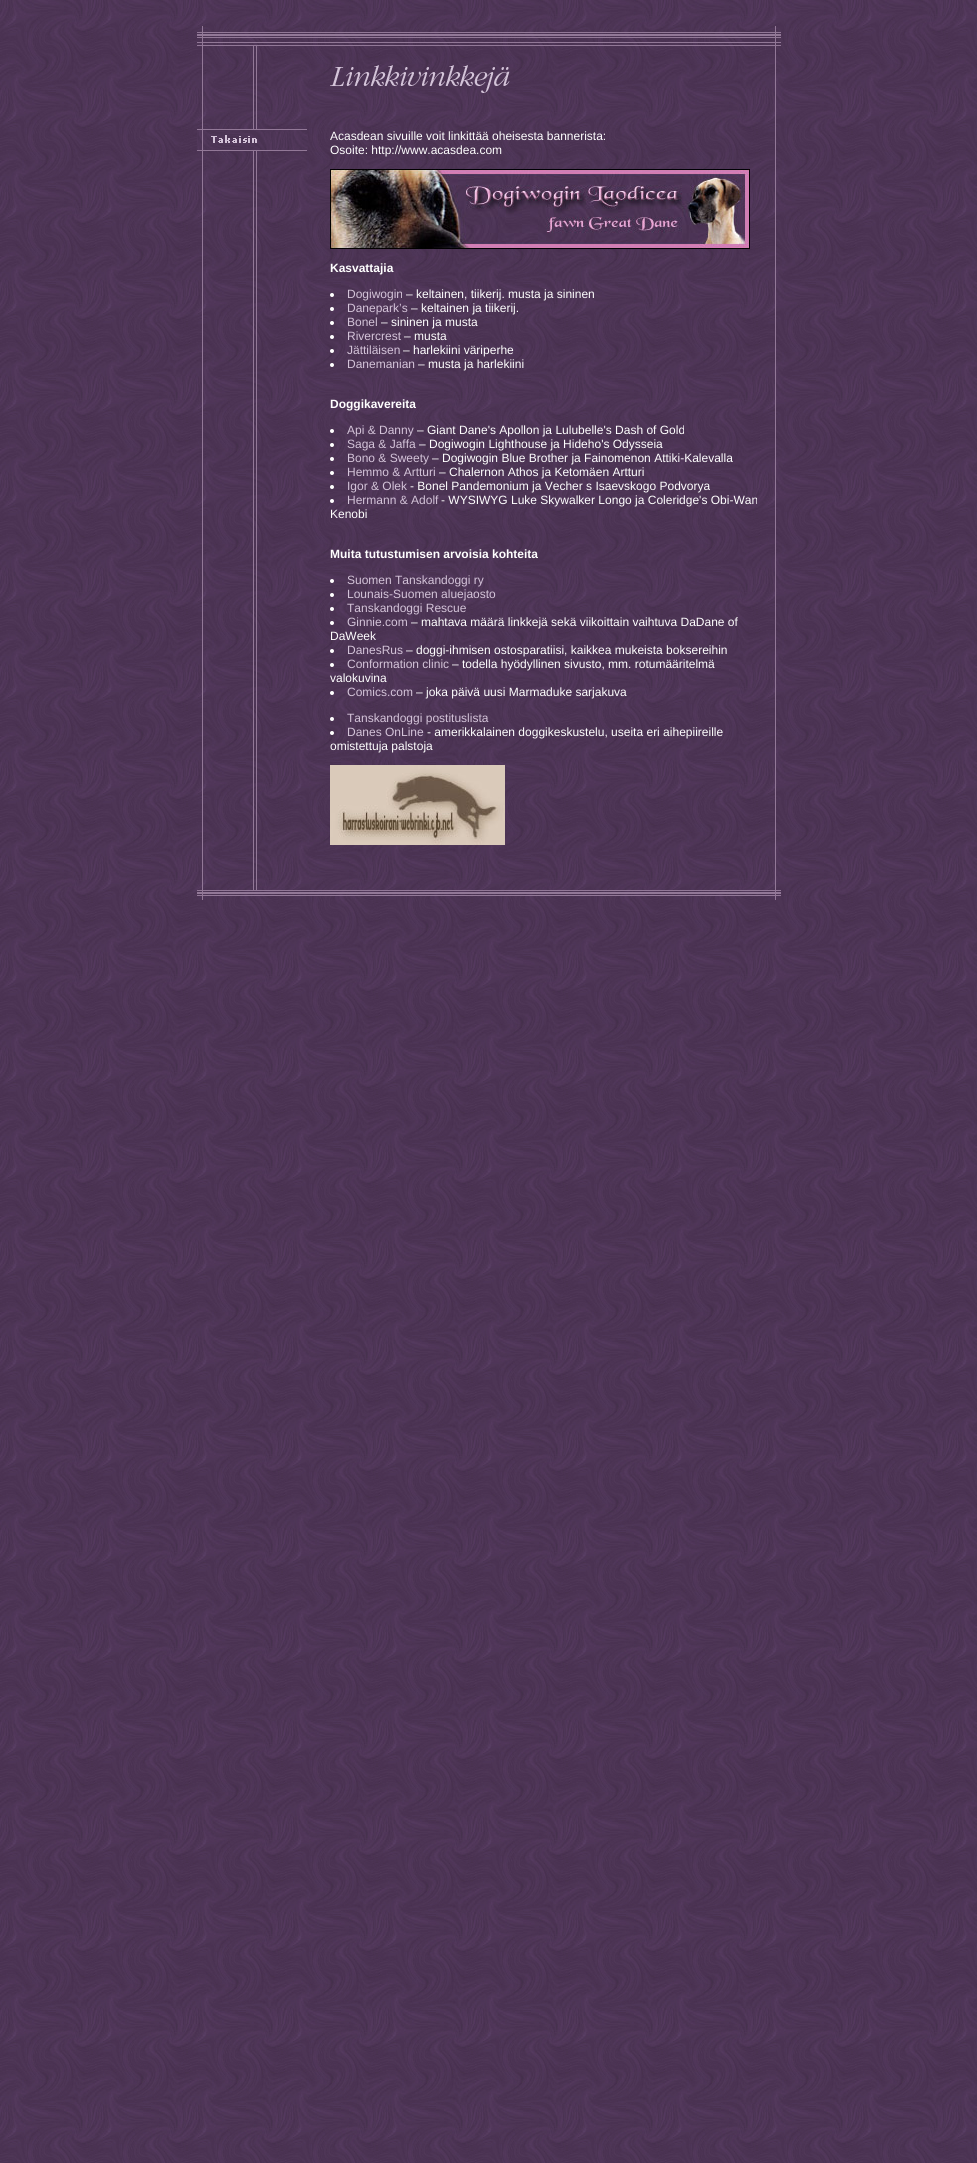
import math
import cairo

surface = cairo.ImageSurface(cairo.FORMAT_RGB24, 977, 2163)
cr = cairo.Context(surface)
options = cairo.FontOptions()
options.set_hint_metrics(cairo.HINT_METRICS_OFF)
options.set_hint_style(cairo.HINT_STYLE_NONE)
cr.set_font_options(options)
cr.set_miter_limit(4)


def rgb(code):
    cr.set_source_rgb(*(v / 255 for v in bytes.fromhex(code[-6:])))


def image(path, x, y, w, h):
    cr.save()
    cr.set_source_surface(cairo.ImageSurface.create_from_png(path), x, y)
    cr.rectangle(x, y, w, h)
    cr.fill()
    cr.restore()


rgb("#ffffff")
cr.paint()
image("img/1.png", 0, 0, 977, 2163)
image("img/2.png", 197, 26, 584, 20)
image("img/3.png", 202, 151, 55, 739)
image("img/4.png", 202, 46, 55, 83)
image("img/5.png", 197, 129, 111, 22)
image("img/6.png", 330, 65, 180, 28)
image("img/7.png", 330, 169, 420, 80)
rgb("#ffffff")
cr.arc(332, 295, 2, 0, 2 * math.pi)
cr.fill()
cr.arc(332, 309, 2, 0, 2 * math.pi)
cr.fill()
cr.arc(332, 323, 2, 0, 2 * math.pi)
cr.fill()
cr.arc(332, 337, 2, 0, 2 * math.pi)
cr.fill()
cr.arc(332, 351, 2, 0, 2 * math.pi)
cr.fill()
cr.arc(332, 365, 2, 0, 2 * math.pi)
cr.fill()
cr.arc(332, 431, 2, 0, 2 * math.pi)
cr.fill()
cr.arc(332, 445, 2, 0, 2 * math.pi)
cr.fill()
cr.arc(332, 459, 2, 0, 2 * math.pi)
cr.fill()
cr.arc(332, 473, 2, 0, 2 * math.pi)
cr.fill()
cr.arc(332, 487, 2, 0, 2 * math.pi)
cr.fill()
cr.arc(332, 501, 2, 0, 2 * math.pi)
cr.fill()
cr.arc(332, 581, 2, 0, 2 * math.pi)
cr.fill()
cr.arc(332, 595, 2, 0, 2 * math.pi)
cr.fill()
cr.arc(332, 609, 2, 0, 2 * math.pi)
cr.fill()
cr.arc(332, 623, 2, 0, 2 * math.pi)
cr.fill()
cr.arc(332, 651, 2, 0, 2 * math.pi)
cr.fill()
cr.arc(332, 665, 2, 0, 2 * math.pi)
cr.fill()
cr.arc(332, 693, 2, 0, 2 * math.pi)
cr.fill()
cr.arc(332, 719, 2, 0, 2 * math.pi)
cr.fill()
cr.arc(332, 733, 2, 0, 2 * math.pi)
cr.fill()
image("img/8.png", 330, 765, 175, 80)
rgb("#927897")
cr.rectangle(775, 46, 1, 844)
cr.fill()
image("img/9.png", 197, 890, 584, 10)
cr.select_font_face("Liberation Sans")
cr.set_font_size(12)
rgb("#ffffff")
cr.move_to(330, 140)
cr.show_text("Acasdean sivuille voit linkittää oheisesta bannerista:")
cr.move_to(330, 154)
cr.show_text("Osoite: http://www.acasdea.com")
cr.select_font_face("Liberation Sans", cairo.FONT_SLANT_NORMAL, cairo.FONT_WEIGHT_BOLD)
cr.move_to(330, 272)
cr.show_text("Kasvattajia")
cr.select_font_face("Liberation Sans")
rgb("#d4c4d9")
cr.move_to(347, 298)
cr.show_text("Dogiwogin")
rgb("#ffffff")
cr.move_to(406, 298)
cr.show_text("– keltainen, tiikerij. musta ja sininen")
rgb("#d4c4d9")
cr.move_to(347, 312)
cr.show_text("Danepark’s")
rgb("#ffffff")
cr.move_to(411, 312)
cr.show_text("– keltainen ja tiikerij.")
rgb("#d4c4d9")
cr.move_to(347, 326)
cr.show_text("Bonel")
rgb("#ffffff")
cr.move_to(381, 326)
cr.show_text("– sininen ja musta")
rgb("#d4c4d9")
cr.move_to(347, 340)
cr.show_text("Rivercrest")
rgb("#ffffff")
cr.move_to(404, 340)
cr.show_text("– musta")
rgb("#d4c4d9")
cr.move_to(347, 354)
cr.show_text("Jättiläisen")
rgb("#ffffff")
cr.move_to(403, 354)
cr.show_text("– harlekiini väriperhe")
rgb("#d4c4d9")
cr.move_to(347, 368)
cr.show_text("Danemanian")
rgb("#ffffff")
cr.move_to(418, 368)
cr.show_text("– musta ja harlekiini")
cr.select_font_face("Liberation Sans", cairo.FONT_SLANT_NORMAL, cairo.FONT_WEIGHT_BOLD)
cr.move_to(330, 408)
cr.show_text("Doggikavereita")
cr.select_font_face("Liberation Sans")
rgb("#d4c4d9")
cr.move_to(347, 434)
cr.show_text("Api & Danny")
rgb("#ffffff")
cr.move_to(417, 434)
cr.show_text("– Giant Dane's Apollon ja Lulubelle's Dash of Gold")
rgb("#d4c4d9")
cr.move_to(347, 448)
cr.show_text("Saga & Jaffa")
rgb("#ffffff")
cr.move_to(419, 448)
cr.show_text("– Dogiwogin Lighthouse ja Hideho's Odysseia")
rgb("#d4c4d9")
cr.move_to(347, 462)
cr.show_text("Bono & Sweety")
rgb("#ffffff")
cr.move_to(432, 462)
cr.show_text("– Dogiwogin Blue Brother ja Fainomenon Attiki-Kalevalla")
rgb("#d4c4d9")
cr.move_to(347, 476)
cr.show_text("Hemmo & Artturi")
rgb("#ffffff")
cr.move_to(439, 476)
cr.show_text("– Chalernon Athos ja Ketomäen Artturi")
rgb("#d4c4d9")
cr.move_to(347, 490)
cr.show_text("Igor & Olek")
rgb("#ffffff")
cr.move_to(410, 490)
cr.show_text("- Bonel Pandemonium ja Vecher s Isaevskogo Podvorya")
rgb("#d4c4d9")
cr.move_to(347, 504)
cr.show_text("Hermann & Adolf")
rgb("#ffffff")
cr.move_to(441, 504)
cr.show_text("- WYSIWYG Luke Skywalker Longo ja Coleridge's Obi-Wan")
cr.move_to(330, 518)
cr.show_text("Kenobi")
cr.select_font_face("Liberation Sans", cairo.FONT_SLANT_NORMAL, cairo.FONT_WEIGHT_BOLD)
cr.move_to(330, 558)
cr.show_text("Muita tutustumisen arvoisia kohteita")
cr.select_font_face("Liberation Sans")
rgb("#d4c4d9")
for x, y, s in [
    (347, 584, "Suomen Tanskandoggi ry"),
    (347, 598, "Lounais-Suomen aluejaosto"),
    (347, 612, "Tanskandoggi Rescue"),
    (347, 626, "Ginnie.com"),
]:
    cr.move_to(x, y)
    cr.show_text(s)
rgb("#ffffff")
cr.move_to(411, 626)
cr.show_text("– mahtava määrä linkkejä sekä viikoittain vaihtuva DaDane of")
cr.move_to(330, 640)
cr.show_text("DaWeek")
rgb("#d4c4d9")
cr.move_to(347, 654)
cr.show_text("DanesRus")
rgb("#ffffff")
cr.move_to(406, 654)
cr.show_text("– doggi-ihmisen ostosparatiisi, kaikkea mukeista boksereihin")
rgb("#d4c4d9")
cr.move_to(347, 668)
cr.show_text("Conformation clinic")
rgb("#ffffff")
cr.move_to(452, 668)
cr.show_text("– todella hyödyllinen sivusto, mm. rotumääritelmä")
cr.move_to(330, 682)
cr.show_text("valokuvina")
rgb("#d4c4d9")
cr.move_to(347, 696)
cr.show_text("Comics.com")
rgb("#ffffff")
cr.move_to(416, 696)
cr.show_text("– joka päivä uusi Marmaduke sarjakuva")
rgb("#d4c4d9")
cr.move_to(347, 722)
cr.show_text("Tanskandoggi postituslista")
cr.move_to(347, 736)
cr.show_text("Danes OnLine")
rgb("#ffffff")
cr.move_to(427, 736)
cr.show_text("- amerikkalainen doggikeskustelu, useita eri aihepiireille")
cr.move_to(330, 750)
cr.show_text("omistettuja palstoja")
surface.write_to_png("page.png")
